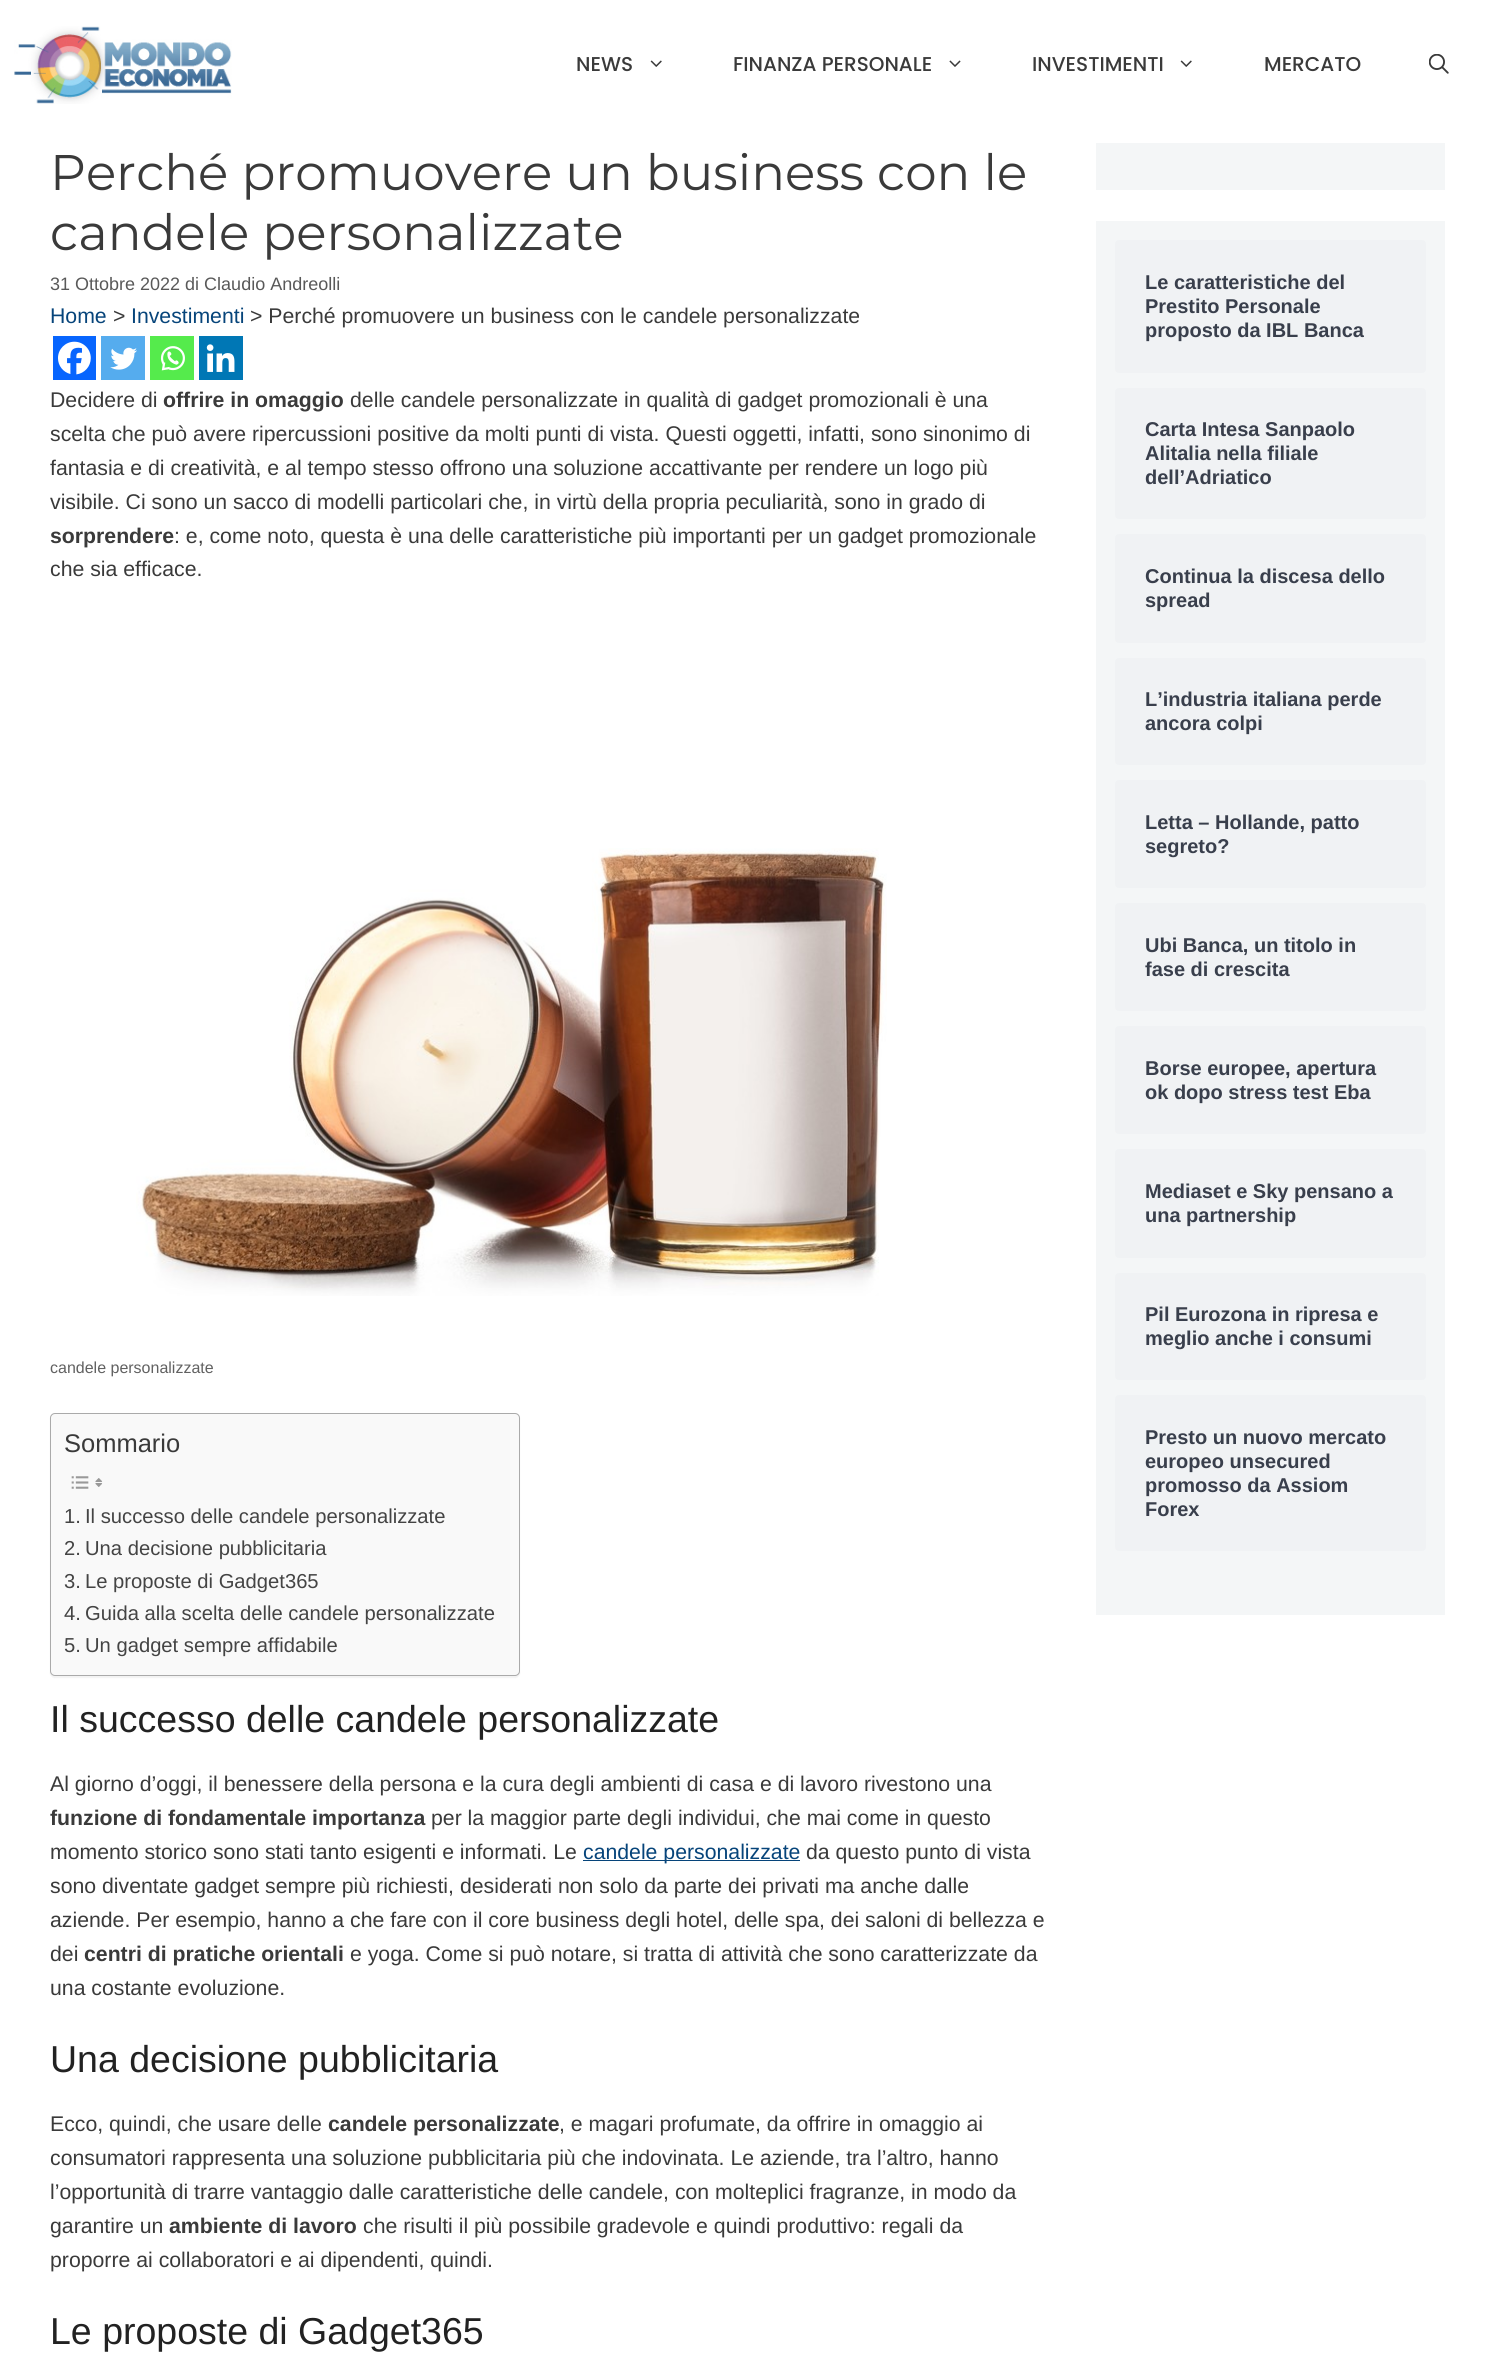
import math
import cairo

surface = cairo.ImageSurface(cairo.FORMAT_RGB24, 1495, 2378)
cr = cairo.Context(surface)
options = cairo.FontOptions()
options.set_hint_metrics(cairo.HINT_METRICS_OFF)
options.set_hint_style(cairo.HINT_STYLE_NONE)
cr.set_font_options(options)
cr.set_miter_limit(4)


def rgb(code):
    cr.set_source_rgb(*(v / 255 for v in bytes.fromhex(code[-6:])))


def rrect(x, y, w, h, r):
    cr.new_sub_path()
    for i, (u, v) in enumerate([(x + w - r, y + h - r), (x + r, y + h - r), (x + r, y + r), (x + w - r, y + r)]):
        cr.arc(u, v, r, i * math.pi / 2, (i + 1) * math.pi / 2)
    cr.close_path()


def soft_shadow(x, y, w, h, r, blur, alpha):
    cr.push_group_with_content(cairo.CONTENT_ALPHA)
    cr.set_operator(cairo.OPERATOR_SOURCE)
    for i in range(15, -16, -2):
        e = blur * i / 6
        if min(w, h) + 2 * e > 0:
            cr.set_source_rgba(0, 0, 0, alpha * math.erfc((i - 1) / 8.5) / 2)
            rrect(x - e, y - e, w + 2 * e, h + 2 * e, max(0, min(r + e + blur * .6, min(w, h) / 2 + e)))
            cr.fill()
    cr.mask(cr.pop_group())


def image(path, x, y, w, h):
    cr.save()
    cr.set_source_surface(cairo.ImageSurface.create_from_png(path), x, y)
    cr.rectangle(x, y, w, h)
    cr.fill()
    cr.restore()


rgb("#ffffff")
cr.paint()
image("img/1.png", 14, 26, 218, 78)
image("img/2.png", 650, 60, 12, 7)
image("img/3.png", 949, 60, 12, 7)
image("img/2.png", 1180, 60, 12, 7)
image("img/4.png", 1429, 54, 20, 20)
rgb("#0765fe")
cr.rectangle(53, 336, 43, 44)
cr.fill()
image("img/5.png", 58, 341, 33, 34)
rgb("#55acee")
cr.rectangle(101, 336, 44, 44)
cr.fill()
image("img/6.png", 110, 347, 27, 23)
rgb("#55eb4c")
cr.rectangle(150, 336, 44, 44)
cr.fill()
image("img/7.png", 160, 346, 25, 25)
rgb("#0077b5")
cr.rectangle(199, 336, 44, 44)
cr.fill()
image("img/8.png", 206, 344, 29, 28)
image("img/9.png", 136, 848, 751, 448)
rgb("#000000")
soft_shadow(50, 1414, 470, 264, 5, 0.5, 0.05)
rgb("#f9f9f9")
rrect(50.5, 1413.5, 469, 262, 4.5)
cr.fill_preserve()
rgb("#aaaaaa")
cr.set_line_width(1)
cr.stroke()
image("img/10.png", 71, 1476, 18, 13)
image("img/11.png", 95, 1478, 8, 9)
for x, y, w, h, color in [
    (583, 1860, 217, 1, "#06447a"),
    (1096, 143, 349, 47, "#f4f6f7"),
    (1096, 221, 349, 1394, "#f4f6f7"),
]:
    rgb(color)
    cr.rectangle(x, y, w, h)
    cr.fill()
rgb("#f0f2f4")
rrect(1115, 240, 311, 133, 4)
cr.fill()
rrect(1115, 388, 311, 131, 4)
cr.fill()
rrect(1115, 534, 311, 109, 4)
cr.fill()
rrect(1115, 658, 311, 107, 4)
cr.fill()
rrect(1115, 780, 311, 108, 4)
cr.fill()
rrect(1115, 903, 311, 108, 4)
cr.fill()
rrect(1115, 1026, 311, 108, 4)
cr.fill()
rrect(1115, 1149, 311, 109, 4)
cr.fill()
rrect(1115, 1273, 311, 107, 4)
cr.fill()
rrect(1115, 1395, 311, 156, 4)
cr.fill()
cr.select_font_face("Poppins Medium")
cr.set_font_size(20)
rgb("#3a3a3a")
for x, y, s in [
    (576, 71, "NEWS"),
    (733, 71, "FINANZA PERSONALE"),
    (1032, 71, "INVESTIMENTI"),
    (1264, 71, "MERCATO"),
]:
    cr.move_to(x, y)
    cr.show_text(s)
cr.select_font_face("Montserrat")
cr.set_font_size(50)
cr.move_to(50, 190)
cr.show_text("Perché promuovere un business con le")
cr.move_to(50, 250)
cr.show_text("candele personalizzate")
cr.select_font_face("Liberation Sans")
cr.set_font_size(18)
rgb("#595959")
cr.move_to(50, 290)
cr.show_text("31 Ottobre 2022 di Claudio Andreolli")
cr.set_font_size(21.25)
rgb("#06447a")
cr.move_to(50, 323)
cr.show_text("Home")
rgb("#3a3a3a")
cr.move_to(113, 323)
cr.show_text(">")
rgb("#06447a")
cr.move_to(131, 323)
cr.show_text("Investimenti")
rgb("#3a3a3a")
cr.move_to(250, 323)
cr.show_text("> Perché promuovere un business con le candele personalizzate")
cr.move_to(50, 407)
cr.show_text("Decidere di")
cr.select_font_face("Liberation Sans", cairo.FONT_SLANT_NORMAL, cairo.FONT_WEIGHT_BOLD)
cr.move_to(163, 407)
cr.show_text("offrire in omaggio")
cr.select_font_face("Liberation Sans")
for x, y, s in [
    (350, 407, "delle candele personalizzate in qualità di gadget promozionali è una"),
    (50, 441, "scelta che può avere ripercussioni positive da molti punti di vista. Questi oggetti, infatti, sono sinonimo di"),
    (50, 475, "fantasia e di creatività, e al tempo stesso offrono una soluzione accattivante per rendere un logo più"),
    (50, 509, "visibile. Ci sono un sacco di modelli particolari che, in virtù della propria peculiarità, sono in grado di"),
]:
    cr.move_to(x, y)
    cr.show_text(s)
cr.select_font_face("Liberation Sans", cairo.FONT_SLANT_NORMAL, cairo.FONT_WEIGHT_BOLD)
cr.move_to(50, 543)
cr.show_text("sorprendere")
cr.select_font_face("Liberation Sans")
cr.move_to(174, 543)
cr.show_text(": e, come noto, questa è una delle caratteristiche più importanti per un gadget promozionale")
cr.move_to(50, 576)
cr.show_text("che sia efficace.")
cr.set_font_size(16)
rgb("#616161")
cr.move_to(50, 1373)
cr.show_text("candele personalizzate")
cr.set_font_size(25.5)
rgb("#3a3a3a")
cr.move_to(64, 1452)
cr.show_text("Sommario")
cr.set_font_size(20.2)
rgb("#444444")
for x, y, s in [
    (64, 1523, "1."),
    (85, 1523, "Il successo delle candele personalizzate"),
    (64, 1555, "2."),
    (85, 1555, "Una decisione pubblicitaria"),
    (64, 1588, "3."),
    (85, 1588, "Le proposte di Gadget365"),
    (64, 1620, "4."),
    (85, 1620, "Guida alla scelta delle candele personalizzate"),
    (64, 1652, "5."),
    (85, 1652, "Un gadget sempre affidabile"),
]:
    cr.move_to(x, y)
    cr.show_text(s)
cr.set_font_size(37.5)
rgb("#222222")
cr.move_to(50, 1732)
cr.show_text("Il successo delle candele personalizzate")
cr.set_font_size(21.25)
rgb("#3a3a3a")
cr.move_to(50, 1791)
cr.show_text("Al giorno d’oggi, il benessere della persona e la cura degli ambienti di casa e di lavoro rivestono una")
cr.select_font_face("Liberation Sans", cairo.FONT_SLANT_NORMAL, cairo.FONT_WEIGHT_BOLD)
cr.move_to(50, 1825)
cr.show_text("funzione di fondamentale importanza")
cr.select_font_face("Liberation Sans")
cr.move_to(431, 1825)
cr.show_text("per la maggior parte degli individui, che mai come in questo")
cr.move_to(50, 1859)
cr.show_text("momento storico sono stati tanto esigenti e informati. Le")
rgb("#06447a")
cr.move_to(583, 1859)
cr.show_text("candele personalizzate")
rgb("#3a3a3a")
for x, y, s in [
    (806, 1859, "da questo punto di vista"),
    (50, 1893, "sono diventate gadget sempre più richiesti, desiderati non solo da parte dei privati ma anche dalle"),
    (50, 1927, "aziende. Per esempio, hanno a che fare con il core business degli hotel, delle spa, dei saloni di bellezza e"),
    (50, 1961, "dei"),
]:
    cr.move_to(x, y)
    cr.show_text(s)
cr.select_font_face("Liberation Sans", cairo.FONT_SLANT_NORMAL, cairo.FONT_WEIGHT_BOLD)
cr.move_to(84, 1961)
cr.show_text("centri di pratiche orientali")
cr.select_font_face("Liberation Sans")
cr.move_to(350, 1961)
cr.show_text("e yoga. Come si può notare, si tratta di attività che sono caratterizzate da")
cr.move_to(50, 1995)
cr.show_text("una costante evoluzione.")
cr.set_font_size(37.5)
rgb("#222222")
cr.move_to(50, 2072)
cr.show_text("Una decisione pubblicitaria")
cr.set_font_size(21.25)
rgb("#3a3a3a")
cr.move_to(50, 2131)
cr.show_text("Ecco, quindi, che usare delle")
cr.select_font_face("Liberation Sans", cairo.FONT_SLANT_NORMAL, cairo.FONT_WEIGHT_BOLD)
cr.move_to(328, 2131)
cr.show_text("candele personalizzate")
cr.select_font_face("Liberation Sans")
for x, y, s in [
    (559, 2131, ", e magari profumate, da offrire in omaggio ai"),
    (50, 2165, "consumatori rappresenta una soluzione pubblicitaria più che indovinata. Le aziende, tra l’altro, hanno"),
    (50, 2199, "l’opportunità di trarre vantaggio dalle caratteristiche delle candele, con molteplici fragranze, in modo da"),
    (50, 2233, "garantire un"),
]:
    cr.move_to(x, y)
    cr.show_text(s)
cr.select_font_face("Liberation Sans", cairo.FONT_SLANT_NORMAL, cairo.FONT_WEIGHT_BOLD)
cr.move_to(169, 2233)
cr.show_text("ambiente di lavoro")
cr.select_font_face("Liberation Sans")
cr.move_to(363, 2233)
cr.show_text("che risulti il più possibile gradevole e quindi produttivo: regali da")
cr.move_to(50, 2267)
cr.show_text("proporre ai collaboratori e ai dipendenti, quindi.")
cr.set_font_size(37.5)
rgb("#222222")
cr.move_to(50, 2344)
cr.show_text("Le proposte di Gadget365")
cr.select_font_face("Liberation Sans", cairo.FONT_SLANT_NORMAL, cairo.FONT_WEIGHT_BOLD)
cr.set_font_size(20)
rgb("#393f4c")
for x, y, s in [
    (1145, 289, "Le caratteristiche del"),
    (1145, 313, "Prestito Personale"),
    (1145, 337, "proposto da IBL Banca"),
    (1145, 436, "Carta Intesa Sanpaolo"),
    (1145, 460, "Alitalia nella filiale"),
    (1145, 484, "dell’Adriatico"),
    (1145, 583, "Continua la discesa dello"),
    (1145, 607, "spread"),
    (1145, 706, "L’industria italiana perde"),
    (1145, 730, "ancora colpi"),
    (1145, 829, "Letta – Hollande, patto"),
    (1145, 853, "segreto?"),
    (1145, 952, "Ubi Banca, un titolo in"),
    (1145, 976, "fase di crescita"),
    (1145, 1075, "Borse europee, apertura"),
    (1145, 1099, "ok dopo stress test Eba"),
    (1145, 1198, "Mediaset e Sky pensano a"),
    (1145, 1222, "una partnership"),
    (1145, 1321, "Pil Eurozona in ripresa e"),
    (1145, 1345, "meglio anche i consumi"),
    (1145, 1444, "Presto un nuovo mercato"),
    (1145, 1468, "europeo unsecured"),
    (1145, 1492, "promosso da Assiom"),
    (1145, 1516, "Forex"),
]:
    cr.move_to(x, y)
    cr.show_text(s)
surface.write_to_png("page.png")
